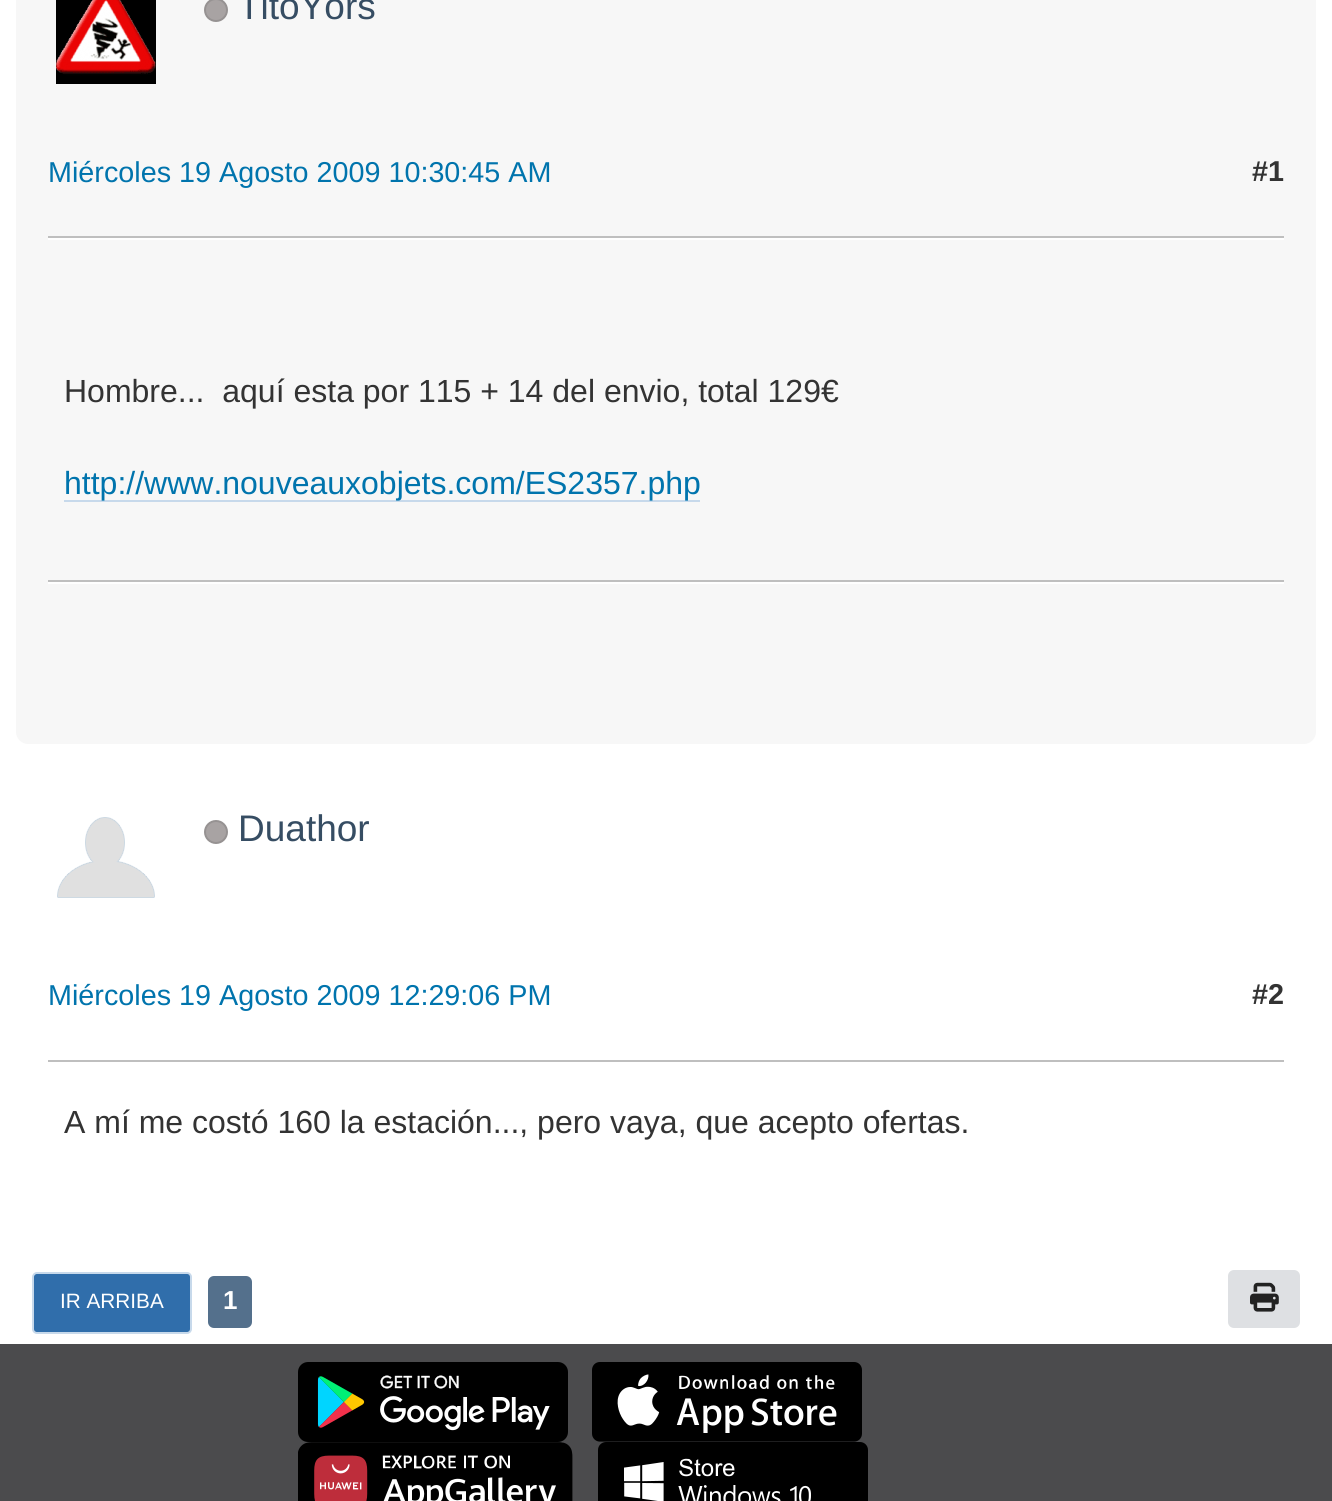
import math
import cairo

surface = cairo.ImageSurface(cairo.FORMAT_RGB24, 1332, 1501)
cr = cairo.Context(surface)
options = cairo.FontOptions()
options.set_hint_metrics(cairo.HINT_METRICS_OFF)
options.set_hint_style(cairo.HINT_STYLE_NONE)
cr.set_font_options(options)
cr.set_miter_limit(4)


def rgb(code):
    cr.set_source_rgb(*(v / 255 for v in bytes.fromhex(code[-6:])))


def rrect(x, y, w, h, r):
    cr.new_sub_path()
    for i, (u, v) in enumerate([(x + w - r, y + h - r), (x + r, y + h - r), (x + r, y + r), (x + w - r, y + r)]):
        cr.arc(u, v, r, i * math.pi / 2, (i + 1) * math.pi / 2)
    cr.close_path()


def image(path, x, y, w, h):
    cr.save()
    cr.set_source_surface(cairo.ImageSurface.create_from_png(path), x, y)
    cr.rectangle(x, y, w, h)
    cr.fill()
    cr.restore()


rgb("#ffffff")
cr.paint()
rgb("#f7f7f7")
cr.rectangle(16, 0, 1300, 108)
cr.fill()
image("img/1.png", 56, 0, 100, 84)
rgb("#a8a3a3")
cr.arc(216, 10, 11, 0, 2 * math.pi)
cr.fill_preserve()
rgb("#969292")
cr.stroke()
rgb("#f7f7f7")
cr.new_path()
cr.move_to(16, 108)
cr.line_to(1316, 108)
cr.line_to(1316, 732)
cr.curve_to(1316, 738.5, 1310.5, 744, 1304, 744)
cr.line_to(28, 744)
cr.curve_to(21.5, 744, 16, 738.5, 16, 732)
cr.close_path()
cr.fill()
for x, y, w, h, color in [
    (48, 238, 1236, 2, "#ffffff"),
    (48, 236, 1236, 2, "#bfbfbf"),
    (64, 500, 636, 2, "#c7d9eb"),
    (48, 582, 1236, 2, "#ffffff"),
    (48, 580, 1236, 2, "#bfbfbf"),
]:
    rgb(color)
    cr.rectangle(x, y, w, h)
    cr.fill()
image("img/2.png", 57, 817, 98, 81)
rgb("#a8a3a3")
cr.arc(216, 832, 11, 0, 2 * math.pi)
cr.fill_preserve()
rgb("#969292")
cr.stroke()
rgb("#bfbfbf")
cr.rectangle(48, 1060, 1236, 2)
cr.fill()
rgb("#306eab")
rrect(33, 1273, 158, 60, 4)
cr.fill_preserve()
rgb("#c7d9eb")
cr.stroke()
rgb("#54708c")
rrect(208, 1276, 44, 52, 6)
cr.fill()
rgb("#dee0e3")
rrect(1228, 1270, 72, 58, 6)
cr.fill()
image("img/3.png", 1250, 1282, 29, 30)
rgb("#4b4b4d")
cr.rectangle(0, 1344, 1332, 157)
cr.fill()
image("img/4.png", 298, 1362, 270, 80)
image("img/5.png", 592, 1362, 270, 80)
image("img/6.png", 298, 1442, 275, 59)
image("img/7.png", 598, 1442, 270, 59)
cr.select_font_face("Liberation Sans")
cr.set_font_size(37)
rgb("#364d63")
cr.move_to(238, 19)
cr.show_text("TitoYors")
cr.set_font_size(28.75)
rgb("#0074ad")
cr.move_to(48, 182)
cr.show_text("Miércoles 19 Agosto 2009 10:30:45 AM")
cr.select_font_face("Liberation Sans", cairo.FONT_SLANT_NORMAL, cairo.FONT_WEIGHT_BOLD)
rgb("#333333")
cr.move_to(1252, 181)
cr.show_text("#1")
cr.select_font_face("Liberation Sans")
cr.set_font_size(32)
cr.move_to(64, 402)
cr.show_text("Hombre...  aquí esta por 115 + 14 del envio, total 129€")
rgb("#0074ad")
cr.move_to(64, 494)
cr.show_text("http://www.nouveauxobjets.com/ES2357.php")
cr.set_font_size(37)
rgb("#364d63")
cr.move_to(238, 841)
cr.show_text("Duathor")
cr.set_font_size(28.75)
rgb("#0074ad")
cr.move_to(48, 1005)
cr.show_text("Miércoles 19 Agosto 2009 12:29:06 PM")
cr.select_font_face("Liberation Sans", cairo.FONT_SLANT_NORMAL, cairo.FONT_WEIGHT_BOLD)
rgb("#333333")
cr.move_to(1252, 1004)
cr.show_text("#2")
cr.select_font_face("Liberation Sans")
cr.set_font_size(32)
cr.move_to(64, 1133)
cr.show_text("A mí me costó 160 la estación..., pero vaya, que acepto ofertas.")
cr.set_font_size(20.75)
rgb("#ffffff")
cr.move_to(60, 1308)
cr.show_text("IR ARRIBA")
cr.select_font_face("Liberation Sans", cairo.FONT_SLANT_NORMAL, cairo.FONT_WEIGHT_BOLD)
cr.set_font_size(26)
cr.move_to(223, 1309)
cr.show_text("1")
surface.write_to_png("page.png")
